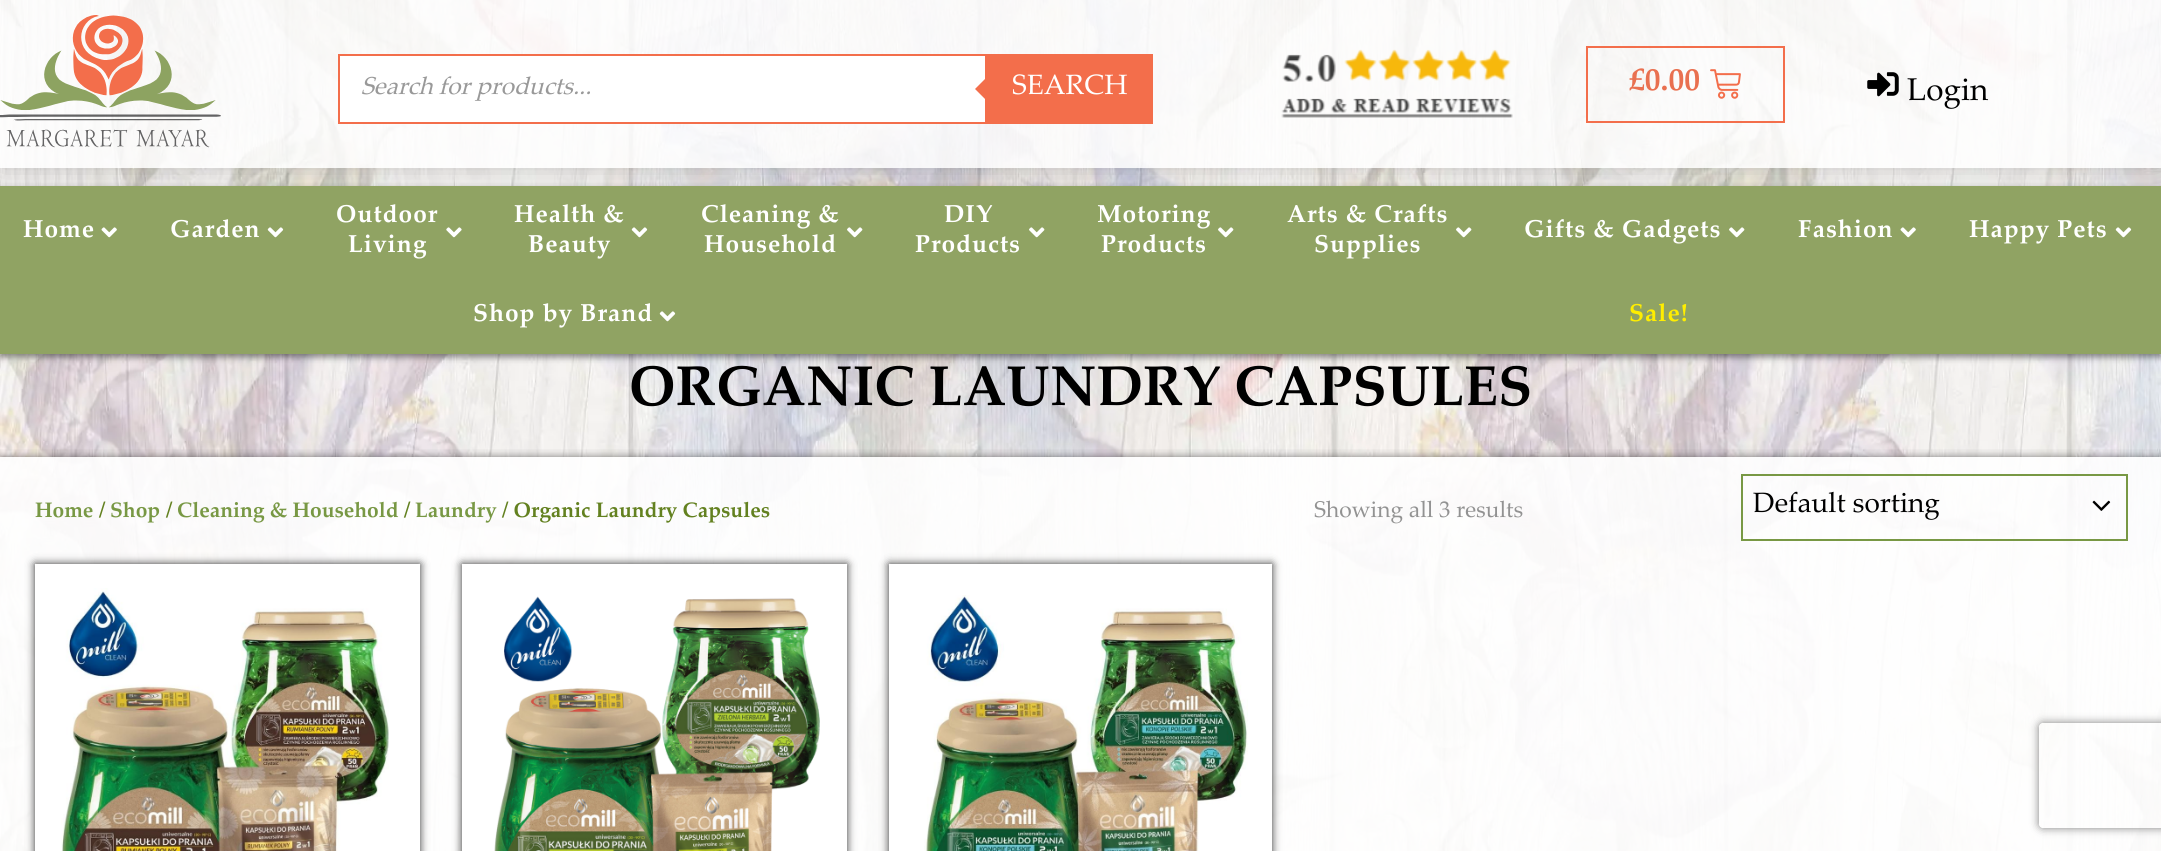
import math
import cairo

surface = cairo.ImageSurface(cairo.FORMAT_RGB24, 2161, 851)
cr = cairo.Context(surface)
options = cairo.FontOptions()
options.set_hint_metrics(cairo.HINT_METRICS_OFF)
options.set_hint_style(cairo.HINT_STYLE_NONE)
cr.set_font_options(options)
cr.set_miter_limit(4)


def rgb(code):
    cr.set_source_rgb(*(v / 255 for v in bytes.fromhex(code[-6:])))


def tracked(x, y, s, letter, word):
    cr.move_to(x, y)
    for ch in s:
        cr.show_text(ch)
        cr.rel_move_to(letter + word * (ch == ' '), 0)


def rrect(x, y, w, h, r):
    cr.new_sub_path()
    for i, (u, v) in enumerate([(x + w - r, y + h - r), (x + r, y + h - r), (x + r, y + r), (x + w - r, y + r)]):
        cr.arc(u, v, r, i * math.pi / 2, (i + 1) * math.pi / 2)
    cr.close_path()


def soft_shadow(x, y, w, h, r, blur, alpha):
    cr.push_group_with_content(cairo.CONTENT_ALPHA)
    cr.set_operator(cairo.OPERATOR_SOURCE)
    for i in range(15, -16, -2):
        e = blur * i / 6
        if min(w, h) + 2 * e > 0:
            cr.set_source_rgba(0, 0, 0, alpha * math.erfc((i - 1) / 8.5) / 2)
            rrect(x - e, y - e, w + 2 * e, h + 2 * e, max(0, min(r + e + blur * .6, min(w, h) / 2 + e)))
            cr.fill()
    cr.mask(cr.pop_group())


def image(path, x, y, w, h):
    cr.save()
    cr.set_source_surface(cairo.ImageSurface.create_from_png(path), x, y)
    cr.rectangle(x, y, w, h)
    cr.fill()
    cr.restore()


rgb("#ffffff")
cr.paint()
image("img/1.png", 0, 0, 2161, 851)
rgb("#000000")
soft_shadow(0, 189, 2161, 168, 0, 3.5, 0.47)
rgb("#90a363")
cr.rectangle(0, 186, 2161, 168)
cr.fill()
cr.save()
cr.rectangle(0, 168, 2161, 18)
cr.clip()
rgb("#000000")
soft_shadow(0, 0, 2161, 168, 0, 14, 0.2)
cr.restore()
cr.set_source_rgba(1, 1, 1, 0.15)
cr.rectangle(0, 0, 2161, 168)
cr.fill()
cr.set_source_rgba(1, 1, 1, 0.78)
cr.rectangle(0, 0, 2161, 168)
cr.fill()
image("img/2.png", 0, 15, 221, 133)
rgb("#ffffff")
cr.rectangle(340, 56, 645, 66)
cr.fill()
cr.rectangle(339, 55, 813, 68)
rgb("#f36e4b")
cr.stroke()
cr.new_path()
cr.move_to(985, 54)
cr.line_to(1149, 54)
cr.curve_to(1151, 54, 1153, 56, 1153, 58)
cr.line_to(1153, 120)
cr.curve_to(1153, 122, 1151, 124, 1149, 124)
cr.line_to(985, 124)
cr.close_path()
cr.fill()
cr.new_path()
cr.move_to(989, 75)
cr.line_to(989, 103)
cr.line_to(975, 89)
cr.close_path()
cr.fill()
image("img/3.png", 1281, 49, 232, 69)
cr.rectangle(1587, 47, 197, 75)
cr.stroke()
image("img/4.png", 1710, 69, 31, 30)
image("img/5.png", 1867, 72, 32, 25)
image("img/6.png", 101, 227, 16, 11)
image("img/7.png", 267, 227, 17, 11)
image("img/8.png", 446, 227, 16, 11)
image("img/7.png", 631, 227, 17, 11)
image("img/9.png", 847, 227, 16, 11)
image("img/9.png", 1029, 227, 16, 11)
image("img/9.png", 1218, 227, 16, 11)
image("img/9.png", 1456, 227, 16, 11)
image("img/9.png", 1729, 227, 16, 11)
image("img/6.png", 1900, 227, 16, 11)
image("img/7.png", 2115, 227, 17, 11)
image("img/7.png", 659, 311, 17, 11)
cr.save()
cr.rectangle(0, 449, 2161, 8)
cr.clip()
rgb("#000000")
soft_shadow(0, 457, 2161, 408, 0, 4.5, 0.5)
cr.restore()
cr.set_source_rgba(1, 1, 1, 0.9)
cr.rectangle(0, 457, 2161, 394)
cr.fill()
cr.rectangle(1742, 475, 385, 65)
rgb("#789844")
cr.stroke()
image("img/10.png", 2092, 500, 19, 11)
rgb("#000000")
soft_shadow(35, 564, 385, 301, 0, 4.5, 0.8)
rgb("#ffffff")
cr.rectangle(35, 564, 385, 287)
cr.fill()
image("img/11.png", 61, 588, 328, 263)
rgb("#000000")
soft_shadow(462, 564, 385, 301, 0, 4.5, 0.8)
rgb("#ffffff")
cr.rectangle(462, 564, 385, 287)
cr.fill()
image("img/12.png", 494, 596, 326, 255)
rgb("#000000")
soft_shadow(889, 564, 383, 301, 0, 4.5, 0.8)
rgb("#ffffff")
cr.rectangle(889, 564, 383, 287)
cr.fill()
image("img/13.png", 924, 595, 324, 256)
cr.save()
cr.set_fill_rule(cairo.FILL_RULE_EVEN_ODD)
cr.new_path()
cr.move_to(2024, 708)
cr.line_to(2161, 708)
cr.line_to(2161, 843)
cr.line_to(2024, 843)
cr.close_path()
cr.move_to(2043, 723)
cr.line_to(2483, 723)
cr.curve_to(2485, 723, 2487, 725, 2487, 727)
cr.line_to(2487, 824)
cr.curve_to(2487, 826, 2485, 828, 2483, 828)
cr.line_to(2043, 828)
cr.curve_to(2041, 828, 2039, 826, 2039, 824)
cr.line_to(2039, 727)
cr.curve_to(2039, 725, 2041, 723, 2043, 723)
cr.close_path()
cr.clip()
rgb("#808080")
soft_shadow(2039, 723, 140, 105, 4, 4.5, 1)
cr.restore()
cr.select_font_face("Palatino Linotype", cairo.FONT_SLANT_ITALIC)
cr.set_font_size(24.5)
rgb("#999999")
cr.move_to(361, 94)
cr.show_text("Search for products...")
cr.select_font_face("Palatino Linotype")
cr.set_font_size(28)
rgb("#ffffff")
cr.move_to(1012, 94)
cr.show_text("SEARCH")
cr.select_font_face("Palatino Linotype", cairo.FONT_SLANT_NORMAL, cairo.FONT_WEIGHT_BOLD)
cr.set_font_size(31.5)
rgb("#e97050")
cr.move_to(1629, 90)
cr.show_text("£0.00")
cr.select_font_face("Palatino Linotype")
rgb("#000000")
cr.move_to(1907, 100)
cr.show_text("Login")
cr.select_font_face("Palatino Linotype", cairo.FONT_SLANT_NORMAL, cairo.FONT_WEIGHT_BOLD)
cr.set_font_size(24.5)
rgb("#ffffff")
for x, y, s in [
    (23, 237, "Home"),
    (170, 237, "Garden"),
    (336, 222, "Outdoor"),
    (348, 252, "Living"),
    (514, 222, "Health &"),
    (528, 252, "Beauty"),
    (701, 222, "Cleaning &"),
    (704, 252, "Household"),
    (944, 222, "DIY"),
    (915, 252, "Products"),
    (1097, 222, "Motoring"),
    (1101, 252, "Products"),
    (1287, 222, "Arts & Crafts"),
    (1314, 252, "Supplies"),
    (1524, 237, "Gifts & Gadgets"),
    (1798, 237, "Fashion"),
    (1969, 237, "Happy Pets"),
    (473, 321, "Shop by Brand"),
]:
    tracked(x, y, s, 1, 0)
rgb("#ffee00")
tracked(1629, 321, "Sale!", 1, 0)
cr.set_font_size(56)
rgb("#000000")
cr.move_to(629, 405)
cr.show_text("ORGANIC LAUNDRY CAPSULES")
cr.set_font_size(21)
rgb("#789844")
cr.move_to(35, 517)
cr.show_text("Home")
rgb("#638120")
cr.move_to(99, 517)
cr.show_text("/")
rgb("#789844")
cr.move_to(110, 517)
cr.show_text("Shop")
rgb("#638120")
cr.move_to(166, 517)
cr.show_text("/")
rgb("#789844")
cr.move_to(177, 517)
cr.show_text("Cleaning & Household")
rgb("#638120")
cr.move_to(404, 517)
cr.show_text("/")
rgb("#789844")
cr.move_to(415, 517)
cr.show_text("Laundry")
rgb("#638120")
cr.move_to(502, 517)
cr.show_text("/ Organic Laundry Capsules")
cr.select_font_face("Palatino Linotype")
cr.set_font_size(22.75)
rgb("#929292")
cr.move_to(1314, 517)
cr.show_text("Showing all 3 results")
cr.set_font_size(28)
rgb("#000000")
cr.move_to(1753, 512)
cr.show_text("Default sorting")
surface.write_to_png("page.png")
